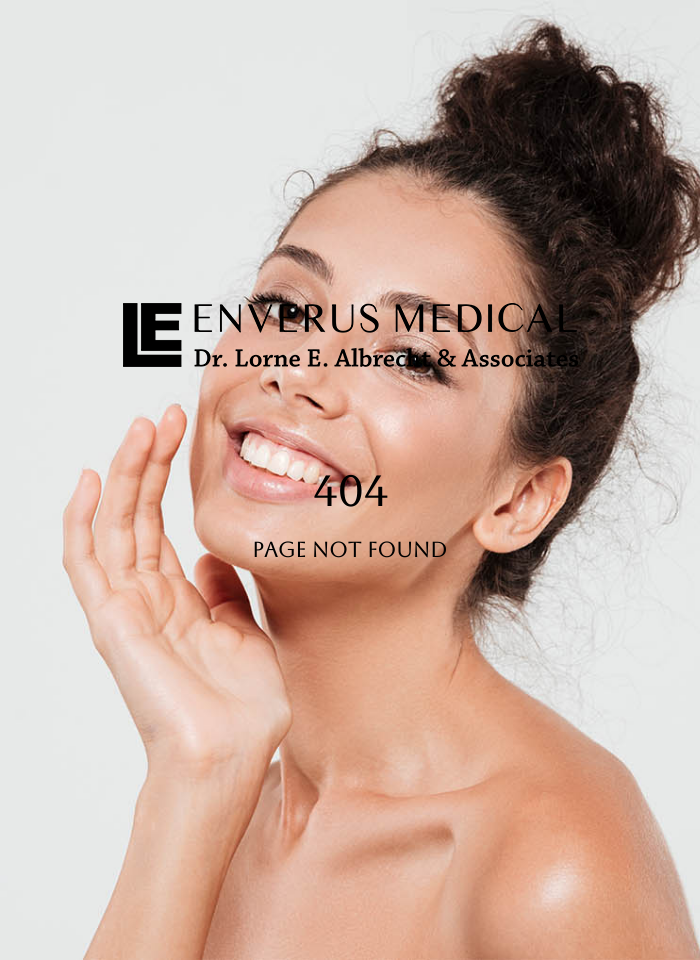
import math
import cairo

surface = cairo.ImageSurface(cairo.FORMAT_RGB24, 700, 960)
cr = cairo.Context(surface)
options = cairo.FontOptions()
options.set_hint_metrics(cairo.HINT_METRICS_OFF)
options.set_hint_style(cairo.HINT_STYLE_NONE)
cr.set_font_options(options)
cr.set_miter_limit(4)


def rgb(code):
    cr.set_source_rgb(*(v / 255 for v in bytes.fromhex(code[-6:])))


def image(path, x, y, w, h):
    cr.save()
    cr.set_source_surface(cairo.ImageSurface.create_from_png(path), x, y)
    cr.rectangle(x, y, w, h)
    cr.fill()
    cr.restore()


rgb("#ffffff")
cr.paint()
image("img/1.png", 0, 0, 700, 960)
image("img/2.png", 123, 303, 455, 64)
cr.select_font_face("Aboreto", cairo.FONT_SLANT_NORMAL, cairo.FONT_WEIGHT_BOLD)
cr.set_font_size(42)
rgb("#000000")
cr.move_to(313, 506)
cr.show_text("404")
cr.set_font_size(21)
cr.move_to(252, 557)
cr.show_text("Page Not Found")
surface.write_to_png("page.png")
